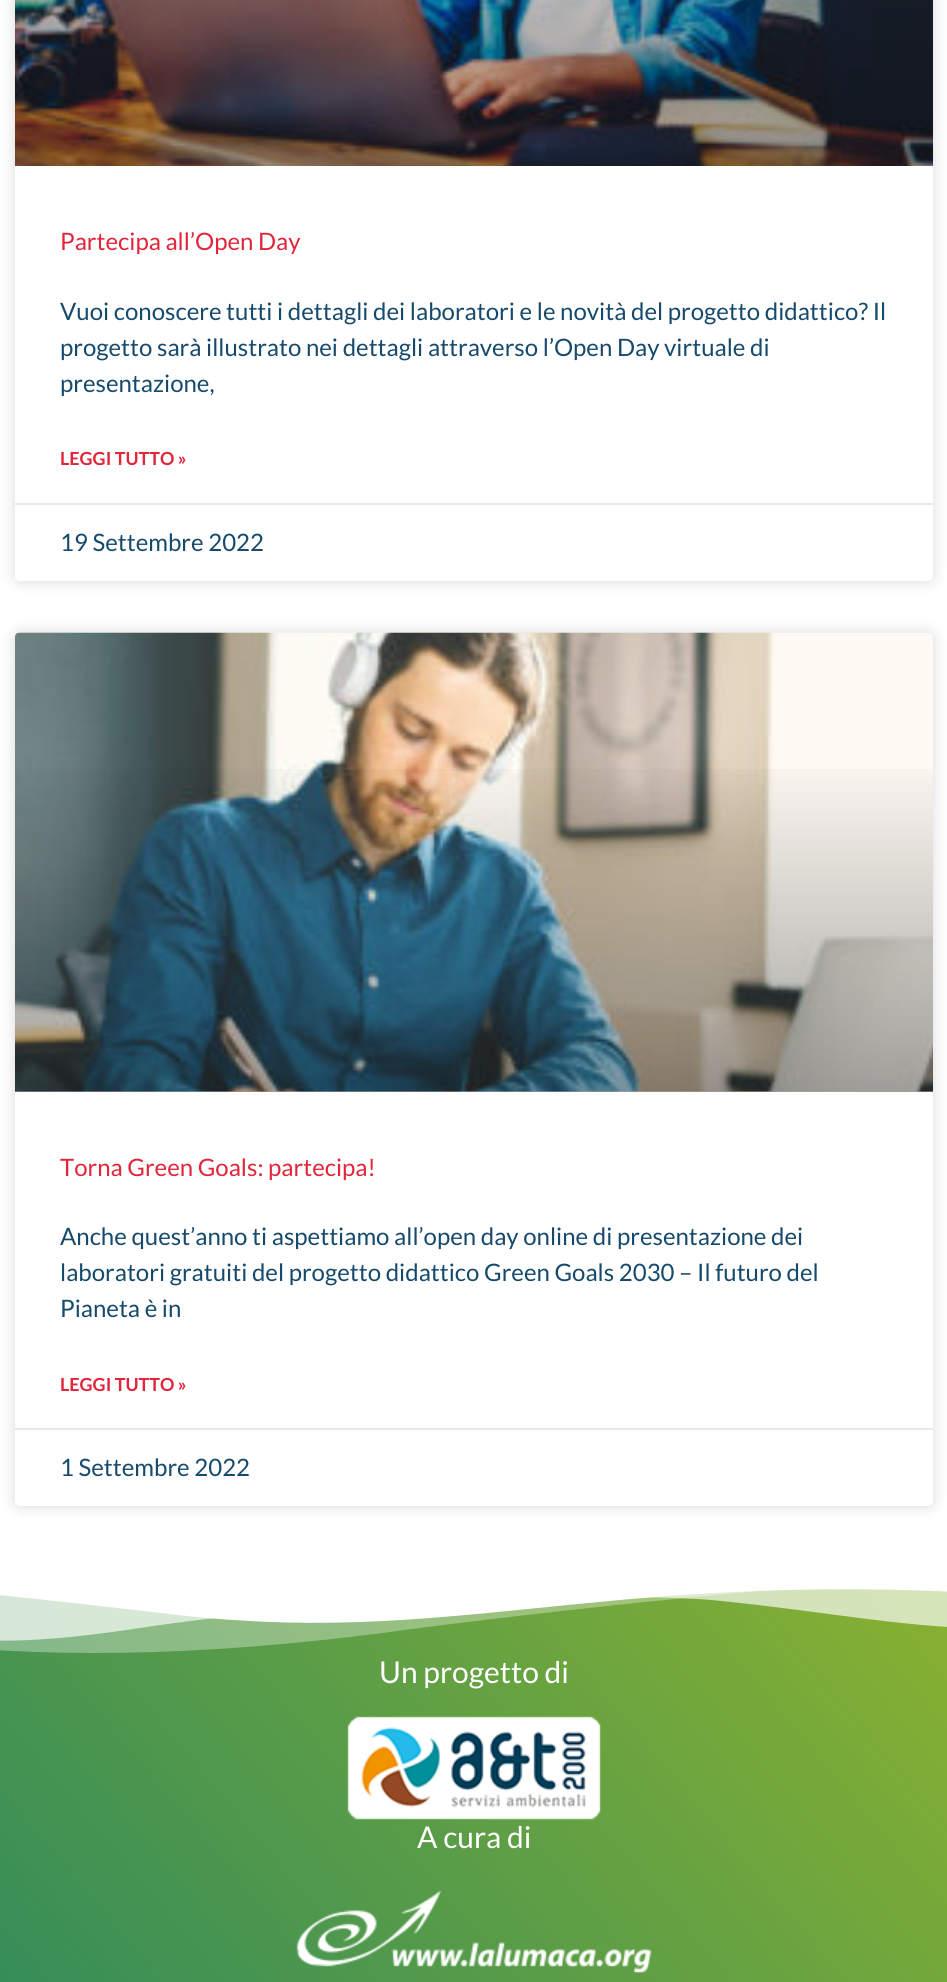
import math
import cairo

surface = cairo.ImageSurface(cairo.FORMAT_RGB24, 947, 1982)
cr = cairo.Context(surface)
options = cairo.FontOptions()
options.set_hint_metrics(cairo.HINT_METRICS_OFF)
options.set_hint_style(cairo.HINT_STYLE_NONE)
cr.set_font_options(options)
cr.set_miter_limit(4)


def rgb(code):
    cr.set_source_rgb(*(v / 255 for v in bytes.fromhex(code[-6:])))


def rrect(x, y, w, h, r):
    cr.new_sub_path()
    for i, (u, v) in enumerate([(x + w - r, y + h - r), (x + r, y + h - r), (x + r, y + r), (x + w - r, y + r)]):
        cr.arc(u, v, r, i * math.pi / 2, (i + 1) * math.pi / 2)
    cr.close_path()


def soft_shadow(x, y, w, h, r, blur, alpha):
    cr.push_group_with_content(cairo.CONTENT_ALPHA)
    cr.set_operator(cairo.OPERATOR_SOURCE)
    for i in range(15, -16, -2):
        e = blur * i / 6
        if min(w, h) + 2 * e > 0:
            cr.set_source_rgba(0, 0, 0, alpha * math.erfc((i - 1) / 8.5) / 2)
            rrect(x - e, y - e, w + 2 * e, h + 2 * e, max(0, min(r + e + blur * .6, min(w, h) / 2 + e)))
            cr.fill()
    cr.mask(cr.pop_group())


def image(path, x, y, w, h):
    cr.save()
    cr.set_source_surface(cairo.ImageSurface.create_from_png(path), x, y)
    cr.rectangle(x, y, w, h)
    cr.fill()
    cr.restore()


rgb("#ffffff")
cr.paint()
rgb("#000000")
soft_shadow(15, -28, 918, 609, 5, 7.5, 0.15)
rgb("#ffffff")
rrect(15, -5, 918, 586, 5)
cr.fill()
image("img/1.png", 15, 0, 918, 166)
rgb("#eaeaea")
cr.rectangle(15, 503, 918, 2)
cr.fill()
rgb("#000000")
soft_shadow(15, 633, 918, 873, 5, 7.5, 0.15)
rgb("#ffffff")
rrect(15, 633, 918, 873, 5)
cr.fill()
image("img/2.png", 15, 632, 918, 460)
gradient = cairo.LinearGradient(474, 1092, 474, 633)
gradient.add_color_stop_rgba(0, 0, 0, 0, 0.35)
gradient.add_color_stop_rgba(0.75, 0, 0, 0, 0)
cr.set_source(gradient)
cr.rectangle(15, 769, 918, 323)
cr.fill()
rgb("#eaeaea")
cr.rectangle(15, 1428, 918, 2)
cr.fill()
gradient = cairo.LinearGradient(64, 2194, 884, 1505)
gradient.add_color_stop_rgba(0, 0.184, 0.541, 0.361, 1)
gradient.add_color_stop_rgba(1, 0.537, 0.694, 0.192, 1)
cr.set_source(gradient)
cr.rectangle(0, 1589, 947, 393)
cr.fill()
image("img/3.png", 0, 1581, 947, 72)
image("img/4.png", 347, 1716, 254, 104)
image("img/5.png", 296, 1890, 356, 84)
cr.select_font_face("Lato")
cr.set_font_size(24)
rgb("#e2253b")
cr.move_to(60, 250)
cr.show_text("Partecipa all’Open Day")
rgb("#164a6c")
for x, y, s in [
    (60, 320, "Vuoi conoscere tutti i dettagli dei laboratori e le novità del progetto didattico? Il"),
    (60, 356, "progetto sarà illustrato nei dettagli attraverso l’Open Day virtuale di"),
    (60, 392, "presentazione,"),
]:
    cr.move_to(x, y)
    cr.show_text(s)
cr.select_font_face("Lato", cairo.FONT_SLANT_NORMAL, cairo.FONT_WEIGHT_BOLD)
cr.set_font_size(18)
rgb("#e2253b")
cr.move_to(60, 465)
cr.show_text("LEGGI TUTTO »")
cr.select_font_face("Lato")
cr.set_font_size(24)
rgb("#164a6c")
cr.move_to(60, 551)
cr.show_text("19 Settembre 2022")
rgb("#e2253b")
cr.move_to(60, 1176)
cr.show_text("Torna Green Goals: partecipa!")
rgb("#164a6c")
for x, y, s in [
    (60, 1245, "Anche quest’anno ti aspettiamo all’open day online di presentazione dei"),
    (60, 1281, "laboratori gratuiti del progetto didattico Green Goals 2030 – Il futuro del"),
    (60, 1317, "Pianeta è in"),
]:
    cr.move_to(x, y)
    cr.show_text(s)
cr.select_font_face("Lato", cairo.FONT_SLANT_NORMAL, cairo.FONT_WEIGHT_BOLD)
cr.set_font_size(18)
rgb("#e2253b")
cr.move_to(60, 1391)
cr.show_text("LEGGI TUTTO »")
cr.select_font_face("Lato")
cr.set_font_size(24)
rgb("#164a6c")
cr.move_to(60, 1476)
cr.show_text("1 Settembre 2022")
cr.set_font_size(30)
rgb("#ffffff")
cr.move_to(379, 1683)
cr.show_text("Un progetto di")
cr.move_to(417, 1848)
cr.show_text("A cura di")
surface.write_to_png("page.png")
